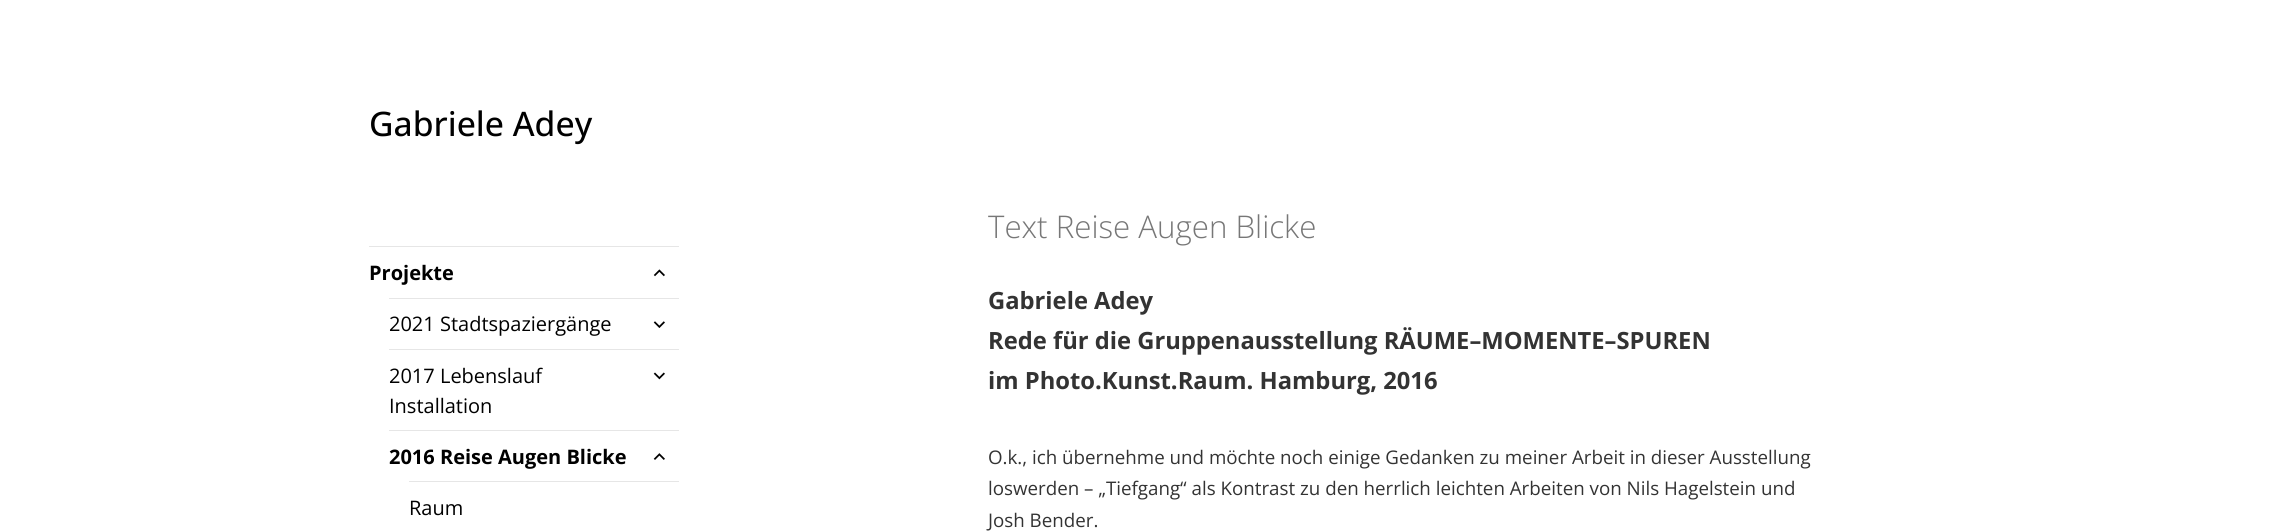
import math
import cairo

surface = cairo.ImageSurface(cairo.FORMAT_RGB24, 2284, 532)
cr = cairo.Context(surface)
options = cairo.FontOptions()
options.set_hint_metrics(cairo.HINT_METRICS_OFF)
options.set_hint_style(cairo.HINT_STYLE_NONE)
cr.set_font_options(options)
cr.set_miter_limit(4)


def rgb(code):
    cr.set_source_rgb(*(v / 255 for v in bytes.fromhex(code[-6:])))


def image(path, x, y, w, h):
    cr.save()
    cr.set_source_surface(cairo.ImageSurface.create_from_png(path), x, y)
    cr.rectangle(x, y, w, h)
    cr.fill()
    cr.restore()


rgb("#ffffff")
cr.paint()
rgb("#e6e6e6")
cr.rectangle(369, 246, 310, 1)
cr.fill()
image("img/1.png", 653, 269, 12, 8)
cr.rectangle(389, 298, 290, 1)
cr.fill()
image("img/2.png", 653, 321, 12, 7)
cr.rectangle(389, 349, 290, 1)
cr.fill()
image("img/3.png", 653, 372, 12, 8)
cr.rectangle(389, 430, 290, 1)
cr.fill()
image("img/4.png", 653, 453, 12, 7)
cr.rectangle(409, 481, 270, 1)
cr.fill()
cr.select_font_face("Open Sans Medium")
cr.set_font_size(33.75)
rgb("#000000")
cr.move_to(369, 136)
cr.show_text("Gabriele Adey")
cr.select_font_face("Open Sans", cairo.FONT_SLANT_NORMAL, cairo.FONT_WEIGHT_BOLD)
cr.set_font_size(20)
cr.move_to(369, 280)
cr.show_text("Projekte")
cr.select_font_face("Open Sans")
for x, y, s in [
    (389, 331, "2021 Stadtspaziergänge"),
    (389, 383, "2017 Lebenslauf"),
    (389, 413, "Installation"),
]:
    cr.move_to(x, y)
    cr.show_text(s)
cr.select_font_face("Open Sans", cairo.FONT_SLANT_NORMAL, cairo.FONT_WEIGHT_BOLD)
cr.move_to(389, 464)
cr.show_text("2016 Reise Augen Blicke")
cr.select_font_face("Open Sans")
cr.move_to(409, 515)
cr.show_text("Raum")
cr.select_font_face("Open Sans Light")
cr.set_font_size(31.25)
rgb("#777777")
cr.move_to(988, 238)
cr.show_text("Text Reise Augen Blicke")
cr.select_font_face("Open Sans", cairo.FONT_SLANT_NORMAL, cairo.FONT_WEIGHT_BOLD)
cr.set_font_size(23.75)
rgb("#333333")
for x, y, s in [
    (988, 309, "Gabriele Adey"),
    (988, 349, "Rede für die Gruppenausstellung RÄUME–MOMENTE–SPUREN"),
    (988, 389, "im Photo.Kunst.Raum. Hamburg, 2016"),
]:
    cr.move_to(x, y)
    cr.show_text(s)
cr.select_font_face("Open Sans")
cr.set_font_size(18.75)
for x, y, s in [
    (988, 464, "O.k., ich übernehme und möchte noch einige Gedanken zu meiner Arbeit in dieser Ausstellung"),
    (988, 495, "loswerden – „Tiefgang“ als Kontrast zu den herrlich leichten Arbeiten von Nils Hagelstein und"),
    (988, 527, "Josh Bender."),
]:
    cr.move_to(x, y)
    cr.show_text(s)
surface.write_to_png("page.png")
